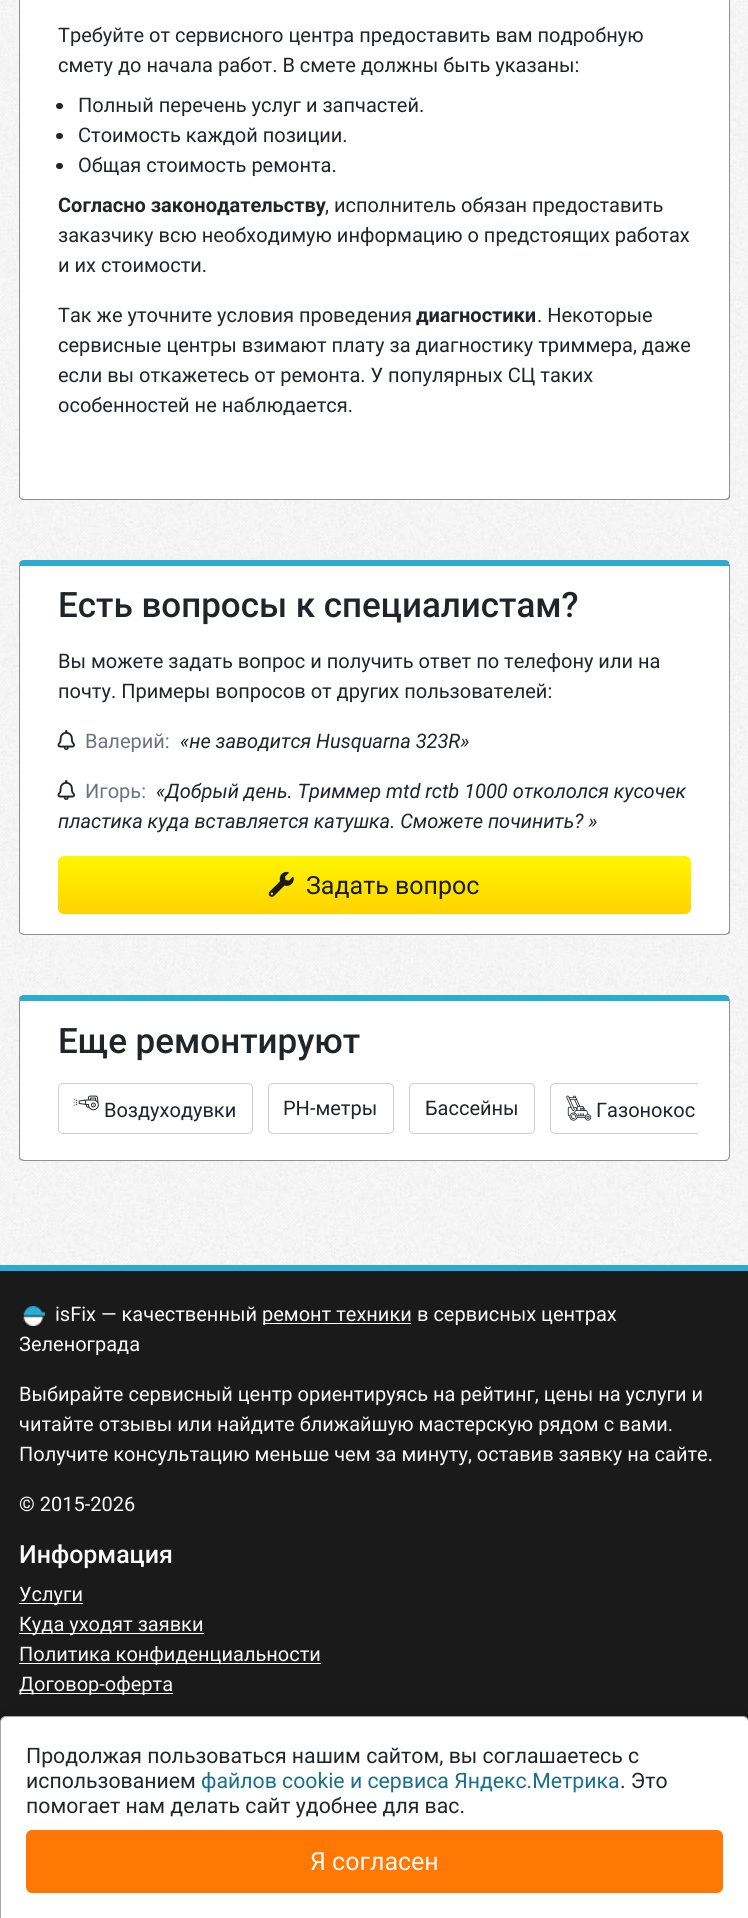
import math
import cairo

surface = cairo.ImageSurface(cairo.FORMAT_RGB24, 748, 1918)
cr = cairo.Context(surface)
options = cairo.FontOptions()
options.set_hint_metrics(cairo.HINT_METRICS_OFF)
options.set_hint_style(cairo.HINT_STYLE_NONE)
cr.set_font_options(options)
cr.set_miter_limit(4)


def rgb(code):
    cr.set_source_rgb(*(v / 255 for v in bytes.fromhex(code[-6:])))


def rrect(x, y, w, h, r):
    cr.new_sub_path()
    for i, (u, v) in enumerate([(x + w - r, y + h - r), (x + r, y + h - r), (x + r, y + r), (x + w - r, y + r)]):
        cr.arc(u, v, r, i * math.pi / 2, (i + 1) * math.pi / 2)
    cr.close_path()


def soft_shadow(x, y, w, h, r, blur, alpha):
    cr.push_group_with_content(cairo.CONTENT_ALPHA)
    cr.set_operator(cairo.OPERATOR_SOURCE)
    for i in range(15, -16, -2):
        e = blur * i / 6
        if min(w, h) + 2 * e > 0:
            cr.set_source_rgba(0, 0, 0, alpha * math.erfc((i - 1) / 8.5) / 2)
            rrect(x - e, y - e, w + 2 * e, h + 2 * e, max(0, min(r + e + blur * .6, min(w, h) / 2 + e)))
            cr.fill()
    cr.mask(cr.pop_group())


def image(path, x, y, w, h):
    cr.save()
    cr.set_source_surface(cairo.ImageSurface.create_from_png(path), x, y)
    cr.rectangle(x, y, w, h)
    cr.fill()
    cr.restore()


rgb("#ffffff")
cr.paint()
image("img/1.png", 0, 0, 748, 1265)
rgb("#ffffff")
cr.new_path()
cr.move_to(24, -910)
cr.line_to(729, -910)
cr.line_to(729, 495)
cr.curve_to(729, 497, 727, 499, 725, 499)
cr.line_to(24, 499)
cr.curve_to(22, 499, 20, 497, 20, 495)
cr.line_to(20, -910)
cr.close_path()
cr.fill()
rgb("#909090")
cr.new_path()
cr.move_to(730, 495)
cr.line_to(730, -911)
cr.line_to(729, -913)
cr.line_to(729, -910)
cr.line_to(729, 495)
cr.line_to(728, 498)
cr.line_to(729, 499)
cr.curve_to(730, 498, 730, 496, 730, 495)
cr.close_path()
cr.fill()
cr.new_path()
cr.move_to(24, 500)
cr.line_to(725, 500)
cr.curve_to(726, 500, 728, 500, 729, 499)
cr.line_to(728, 498)
cr.line_to(725, 499)
cr.line_to(24, 499)
cr.line_to(21, 498)
cr.line_to(20, 498)
cr.curve_to(21, 499, 22, 500, 24, 500)
cr.close_path()
cr.fill()
cr.new_path()
cr.move_to(19, -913)
cr.line_to(19, -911)
cr.line_to(19, 495)
cr.curve_to(19, 496, 19, 498, 20, 498)
cr.line_to(21, 498)
cr.curve_to(20, 497, 20, 496, 20, 495)
cr.line_to(20, -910)
cr.close_path()
cr.fill()
rgb("#212529")
rrect(56, 103, 7, 6, 3)
cr.fill()
rrect(56, 133, 7, 6, 3)
cr.fill()
rrect(56, 163, 7, 6, 3)
cr.fill()
rgb("#ffffff")
cr.new_path()
cr.move_to(24, 566)
cr.line_to(729, 566)
cr.line_to(729, 930)
cr.curve_to(729, 932, 727, 934, 725, 934)
cr.line_to(24, 934)
cr.curve_to(22, 934, 20, 932, 20, 930)
cr.line_to(20, 566)
cr.close_path()
cr.fill()
rgb("#2aacd2")
cr.new_path()
cr.move_to(24, 560)
cr.curve_to(22, 560, 20, 561, 19, 563)
cr.line_to(20, 566)
cr.line_to(729, 566)
cr.line_to(729, 563)
cr.curve_to(729, 561, 727, 560, 725, 560)
cr.close_path()
cr.fill()
rgb("#909090")
cr.new_path()
cr.move_to(730, 930)
cr.line_to(730, 565)
cr.line_to(729, 563)
cr.line_to(729, 566)
cr.line_to(729, 930)
cr.line_to(728, 933)
cr.line_to(729, 934)
cr.curve_to(730, 933, 730, 932, 730, 930)
cr.close_path()
cr.fill()
cr.new_path()
cr.move_to(24, 935)
cr.line_to(725, 935)
cr.curve_to(726, 935, 728, 934, 729, 934)
cr.line_to(728, 933)
cr.line_to(725, 934)
cr.line_to(24, 934)
cr.line_to(21, 933)
cr.line_to(20, 933)
cr.curve_to(21, 934, 22, 935, 24, 935)
cr.close_path()
cr.fill()
cr.new_path()
cr.move_to(19, 563)
cr.line_to(19, 930)
cr.curve_to(19, 931, 19, 933, 20, 933)
cr.line_to(21, 933)
cr.curve_to(20, 932, 20, 931, 20, 930)
cr.line_to(20, 566)
cr.close_path()
cr.fill()
image("img/2.png", 57, 730, 18, 20)
image("img/2.png", 57, 780, 18, 20)
gradient = cairo.LinearGradient(374, 856, 374, 914)
gradient.add_color_stop_rgba(0, 1, 0.965, 0, 1)
gradient.add_color_stop_rgba(1, 1, 0.824, 0, 1)
cr.set_source(gradient)
rrect(58, 856, 633, 58, 6)
cr.fill()
image("img/3.png", 268, 871, 26, 26)
rgb("#ffffff")
cr.new_path()
cr.move_to(24, 1001)
cr.line_to(729, 1001)
cr.line_to(729, 1156)
cr.curve_to(729, 1158, 727, 1160, 725, 1160)
cr.line_to(24, 1160)
cr.curve_to(22, 1160, 20, 1158, 20, 1156)
cr.line_to(20, 1001)
cr.close_path()
cr.fill()
rgb("#2aacd2")
cr.new_path()
cr.move_to(24, 995)
cr.curve_to(22, 995, 20, 996, 19, 998)
cr.line_to(20, 1001)
cr.line_to(729, 1001)
cr.line_to(729, 998)
cr.curve_to(729, 996, 727, 995, 725, 995)
cr.close_path()
cr.fill()
rgb("#909090")
cr.new_path()
cr.move_to(730, 1156)
cr.line_to(730, 1000)
cr.line_to(729, 998)
cr.line_to(729, 1001)
cr.line_to(729, 1156)
cr.line_to(728, 1159)
cr.line_to(728, 1160)
cr.curve_to(729, 1159, 730, 1158, 730, 1156)
cr.close_path()
cr.fill()
cr.new_path()
cr.move_to(728, 1160)
cr.curve_to(728, 1161, 726, 1161, 725, 1161)
cr.line_to(24, 1161)
cr.curve_to(22, 1161, 21, 1160, 20, 1160)
cr.line_to(21, 1159)
cr.line_to(24, 1160)
cr.line_to(725, 1160)
cr.line_to(728, 1159)
cr.close_path()
cr.fill()
cr.new_path()
cr.move_to(19, 998)
cr.line_to(19, 1156)
cr.curve_to(19, 1157, 19, 1159, 20, 1160)
cr.line_to(21, 1159)
cr.curve_to(20, 1158, 20, 1157, 20, 1156)
cr.line_to(20, 1001)
cr.close_path()
cr.fill()
rrect(58.5, 1083.5, 194, 50, 4.5)
rgb("#d0d0d0")
cr.set_line_width(1)
cr.stroke()
image("img/4.png", 73, 1095, 26, 16)
rrect(268.5, 1083.5, 125, 50, 4.5)
cr.stroke()
rrect(409.5, 1083.5, 125, 50, 4.5)
cr.stroke()
cr.save()
cr.rectangle(51, 1083, 647, 77)
cr.clip()
rrect(550.5, 1083.5, 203, 50, 4.5)
cr.stroke()
cr.restore()
image("img/5.png", 566, 1095, 26, 26)
rgb("#1a1a1a")
cr.rectangle(0, 1271, 748, 451)
cr.fill()
rgb("#2aacd2")
cr.rectangle(0, 1265, 748, 6)
cr.fill()
image("img/6.png", 23, 1306, 22, 20)
for x, y, w, h, color in [
    (263, 1323, 148, 1, "#ffffff"),
    (19, 1603, 64, 1, "#ffffff"),
    (19, 1633, 185, 1, "#ffffff"),
    (19, 1663, 302, 1, "#ffffff"),
    (19, 1693, 154, 1, "#ffffff"),
]:
    rgb(color)
    cr.rectangle(x, y, w, h)
    cr.fill()
rgb("#000000")
soft_shadow(0, 1716, 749, 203, 6, 9.5, 0.2)
rgb("#ffffff")
cr.new_path()
cr.move_to(6, 1716.5)
cr.line_to(743, 1716.5)
cr.curve_to(746, 1716.5, 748.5, 1719, 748.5, 1722)
cr.line_to(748.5, 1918.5)
cr.line_to(0.5, 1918.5)
cr.line_to(0.5, 1722)
cr.curve_to(0.5, 1719, 3, 1716.5, 6, 1716.5)
cr.close_path()
cr.fill_preserve()
rgb("#a7a7a7")
cr.stroke()
rgb("#ff7804")
rrect(26, 1830, 697, 63, 6)
cr.fill()
cr.select_font_face("Roboto")
cr.set_font_size(20)
rgb("#212529")
for x, y, s in [
    (58, 42, "Требуйте от сервисного центра предоставить вам подробную"),
    (58, 72, "смету до начала работ. В смете должны быть указаны:"),
    (78, 112, "Полный перечень услуг и запчастей."),
    (78, 142, "Стоимость каждой позиции."),
    (78, 172, "Общая стоимость ремонта."),
]:
    cr.move_to(x, y)
    cr.show_text(s)
cr.select_font_face("Roboto", cairo.FONT_SLANT_NORMAL, cairo.FONT_WEIGHT_BOLD)
cr.move_to(58, 212)
cr.show_text("Согласно законодательству")
cr.select_font_face("Roboto")
for x, y, s in [
    (325, 212, ", исполнитель обязан предоставить"),
    (58, 242, "заказчику всю необходимую информацию о предстоящих работах"),
    (58, 272, "и их стоимости."),
    (58, 322, "Так же уточните условия проведения"),
]:
    cr.move_to(x, y)
    cr.show_text(s)
cr.select_font_face("Roboto", cairo.FONT_SLANT_NORMAL, cairo.FONT_WEIGHT_BOLD)
cr.move_to(416, 322)
cr.show_text("диагностики")
cr.select_font_face("Roboto")
for x, y, s in [
    (537, 322, ". Некоторые"),
    (58, 352, "сервисные центры взимают плату за диагностику триммера, даже"),
    (58, 382, "если вы откажетесь от ремонта. У популярных СЦ таких"),
    (58, 412, "особенностей не наблюдается."),
]:
    cr.move_to(x, y)
    cr.show_text(s)
cr.select_font_face("Roboto Medium")
cr.set_font_size(35)
cr.move_to(58, 617)
cr.show_text("Есть вопросы к специалистам?")
cr.select_font_face("Roboto")
cr.set_font_size(20)
cr.move_to(58, 668)
cr.show_text("Вы можете задать вопрос и получить ответ по телефону или на")
cr.move_to(58, 698)
cr.show_text("почту. Примеры вопросов от других пользователей:")
rgb("#6c757d")
cr.move_to(85, 748)
cr.show_text("Валерий:")
cr.select_font_face("Roboto", cairo.FONT_SLANT_ITALIC)
rgb("#212529")
cr.move_to(180, 748)
cr.show_text("«не заводится Husquarna 323R»")
cr.select_font_face("Roboto")
rgb("#6c757d")
cr.move_to(85, 798)
cr.show_text("Игорь:")
cr.select_font_face("Roboto", cairo.FONT_SLANT_ITALIC)
rgb("#212529")
cr.move_to(156, 798)
cr.show_text("«Добрый день. Триммер mtd rctb 1000 откололся кусочек")
cr.move_to(58, 828)
cr.show_text("пластика куда вставляется катушка. Сможете починить? »")
cr.select_font_face("Roboto")
cr.set_font_size(25)
rgb("#1a1a1a")
cr.move_to(306, 894)
cr.show_text("Задать вопрос")
cr.select_font_face("Roboto Medium")
cr.set_font_size(35)
rgb("#212529")
cr.move_to(58, 1053)
cr.show_text("Еще ремонтируют")
cr.select_font_face("Roboto")
cr.set_font_size(20)
for x, y, s in [
    (104, 1117, "Воздуходувки"),
    (283, 1115, "PH-метры"),
    (425, 1115, "Бассейны"),
    (596, 1117, "Газонокос"),
]:
    cr.move_to(x, y)
    cr.show_text(s)
rgb("#fafafa")
for x, y, s in [
    (55, 1321, "isFix — качественный"),
    (262, 1321, "ремонт техники"),
    (417, 1321, "в сервисных центрах"),
    (19, 1351, "Зеленограда"),
    (19, 1401, "Выбирайте сервисный центр ориентируясь на рейтинг, цены на услуги и"),
    (19, 1431, "читайте отзывы или найдите ближайшую мастерскую рядом с вами."),
    (19, 1461, "Получите консультацию меньше чем за минуту, оставив заявку на сайте."),
    (19, 1511, "© 2015-2026"),
]:
    cr.move_to(x, y)
    cr.show_text(s)
cr.select_font_face("Roboto Medium")
cr.set_font_size(25)
cr.move_to(19, 1563)
cr.show_text("Информация")
cr.select_font_face("Roboto")
cr.set_font_size(20)
for x, y, s in [
    (19, 1601, "Услуги"),
    (19, 1631, "Куда уходят заявки"),
    (19, 1661, "Политика конфиденциальности"),
    (19, 1691, "Договор-оферта"),
]:
    cr.move_to(x, y)
    cr.show_text(s)
cr.set_font_size(21.25)
rgb("#212529")
cr.move_to(26, 1763)
cr.show_text("Продолжая пользоваться нашим сайтом, вы соглашаетесь с")
cr.move_to(26, 1788)
cr.show_text("использованием")
rgb("#18708b")
cr.move_to(201, 1788)
cr.show_text("файлов cookie и сервиса Яндекс.Метрика")
rgb("#212529")
cr.move_to(620, 1788)
cr.show_text(". Это")
cr.move_to(26, 1813)
cr.show_text("помогает нам делать сайт удобнее для вас.")
cr.set_font_size(25)
rgb("#fafafa")
cr.move_to(310, 1870)
cr.show_text("Я согласен")
surface.write_to_png("page.png")
